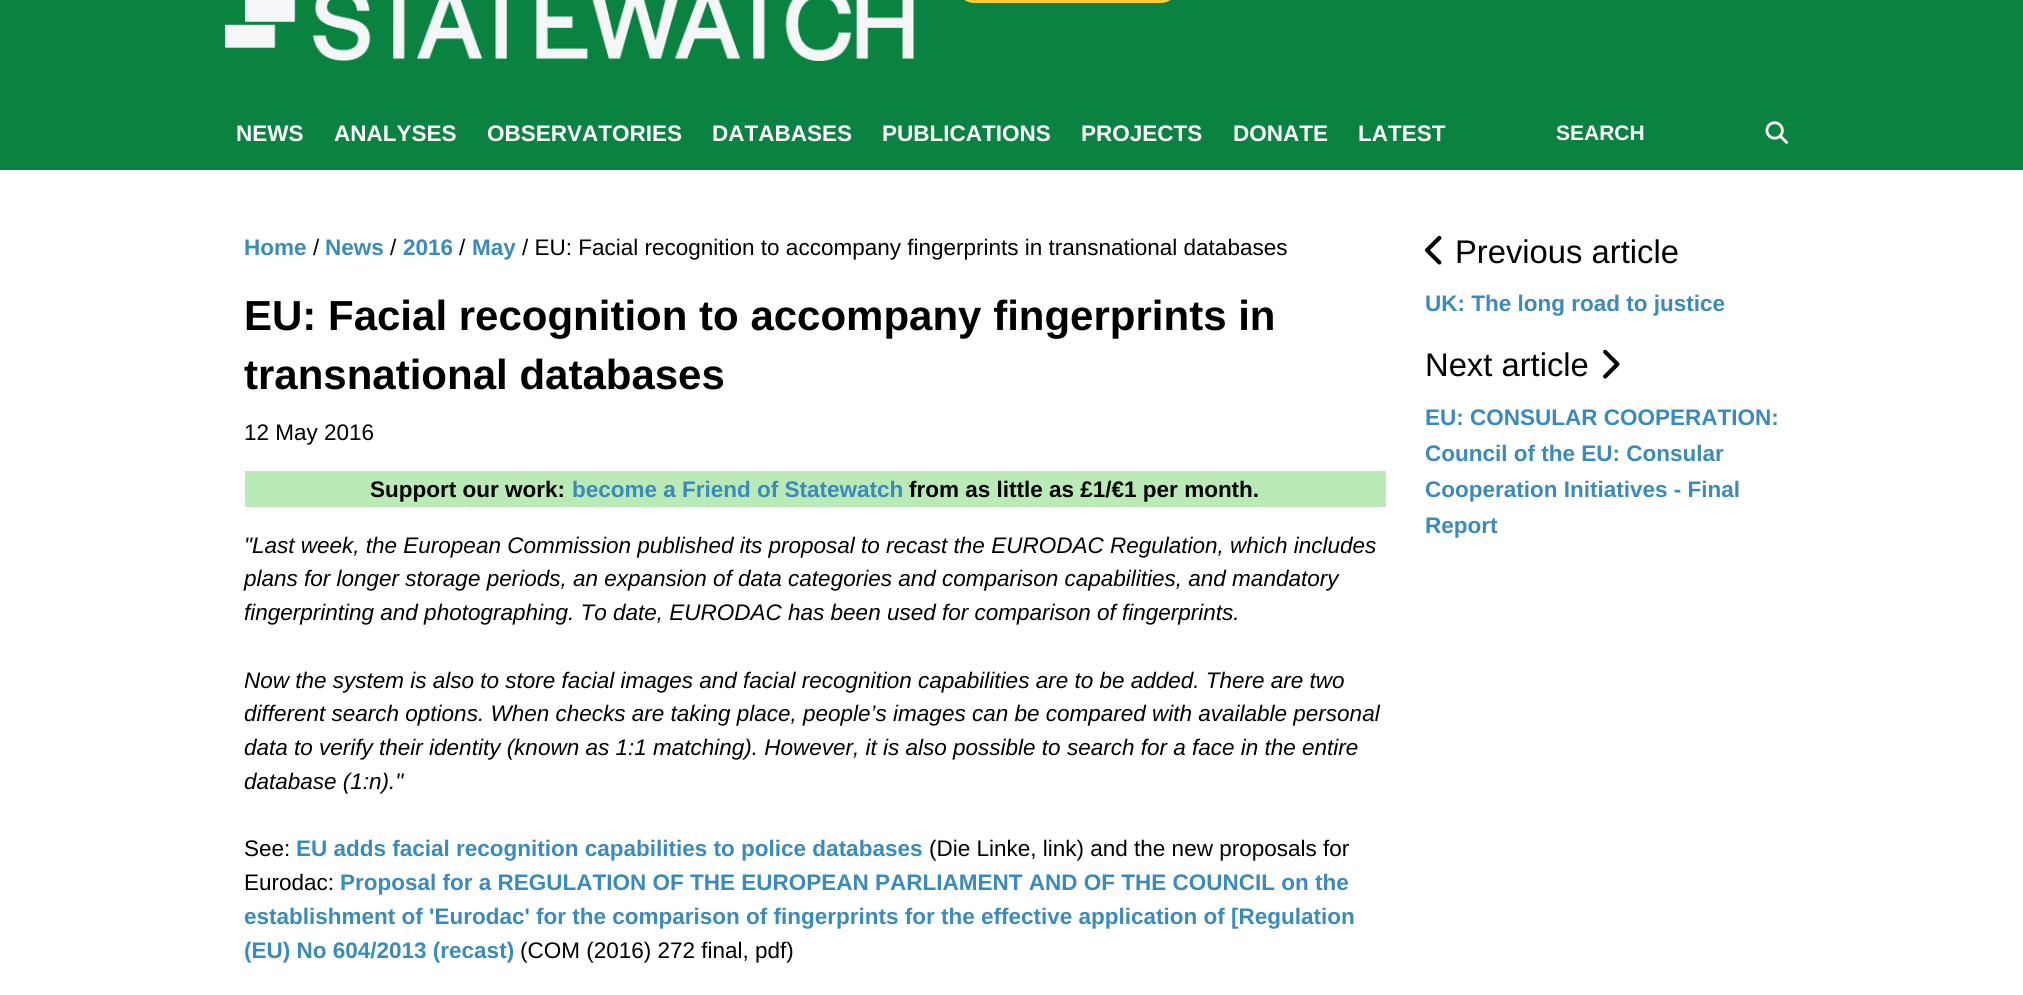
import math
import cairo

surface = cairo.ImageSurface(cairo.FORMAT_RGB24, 2023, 995)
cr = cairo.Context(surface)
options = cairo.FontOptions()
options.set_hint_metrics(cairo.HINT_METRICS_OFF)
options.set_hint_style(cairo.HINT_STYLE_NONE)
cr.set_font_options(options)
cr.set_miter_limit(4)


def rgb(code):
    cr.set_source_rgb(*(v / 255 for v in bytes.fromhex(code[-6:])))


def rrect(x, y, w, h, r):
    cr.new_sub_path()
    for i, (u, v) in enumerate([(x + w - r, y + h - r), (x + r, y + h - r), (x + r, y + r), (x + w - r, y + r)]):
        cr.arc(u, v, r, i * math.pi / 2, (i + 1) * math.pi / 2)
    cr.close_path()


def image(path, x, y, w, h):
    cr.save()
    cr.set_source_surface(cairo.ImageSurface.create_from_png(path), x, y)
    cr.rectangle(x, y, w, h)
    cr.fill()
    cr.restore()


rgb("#ffffff")
cr.paint()
rgb("#0a8341")
cr.rectangle(0, 0, 2023, 170)
cr.fill()
rgb("#ffcc33")
rrect(956, -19, 223, 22, 18.5)
cr.fill()
image("img/1.png", 225, 0, 689, 61)
image("img/2.png", 1765, 121, 23, 23)
rgb("#baeab6")
cr.rectangle(245, 471, 1141, 36)
cr.fill()
image("img/3.png", 1425, 235, 17, 30)
image("img/4.png", 1603, 349, 17, 30)
cr.select_font_face("Liberation Sans", cairo.FONT_SLANT_NORMAL, cairo.FONT_WEIGHT_BOLD)
cr.set_font_size(22.5)
rgb("#ffffff")
for x, y, s in [
    (236, 141, "NEWS"),
    (334, 141, "ANALYSES"),
    (487, 141, "OBSERVATORIES"),
    (712, 141, "DATABASES"),
    (882, 141, "PUBLICATIONS"),
    (1081, 141, "PROJECTS"),
    (1233, 141, "DONATE"),
    (1358, 141, "LATEST"),
]:
    cr.move_to(x, y)
    cr.show_text(s)
cr.set_font_size(21)
cr.move_to(1556, 140)
cr.show_text("SEARCH")
cr.set_font_size(22.5)
rgb("#3b8abc")
cr.move_to(244, 255)
cr.show_text("Home")
cr.select_font_face("Liberation Sans")
rgb("#000000")
cr.move_to(313, 255)
cr.show_text("/")
cr.select_font_face("Liberation Sans", cairo.FONT_SLANT_NORMAL, cairo.FONT_WEIGHT_BOLD)
rgb("#3b8abc")
cr.move_to(325, 255)
cr.show_text("News")
cr.select_font_face("Liberation Sans")
rgb("#000000")
cr.move_to(390, 255)
cr.show_text("/")
cr.select_font_face("Liberation Sans", cairo.FONT_SLANT_NORMAL, cairo.FONT_WEIGHT_BOLD)
rgb("#3b8abc")
cr.move_to(403, 255)
cr.show_text("2016")
cr.select_font_face("Liberation Sans")
rgb("#000000")
cr.move_to(459, 255)
cr.show_text("/")
cr.select_font_face("Liberation Sans", cairo.FONT_SLANT_NORMAL, cairo.FONT_WEIGHT_BOLD)
rgb("#3b8abc")
cr.move_to(472, 255)
cr.show_text("May")
cr.select_font_face("Liberation Sans")
rgb("#000000")
cr.move_to(522, 255)
cr.show_text("/ EU: Facial recognition to accompany fingerprints in transnational databases")
cr.select_font_face("Liberation Sans", cairo.FONT_SLANT_NORMAL, cairo.FONT_WEIGHT_BOLD)
cr.set_font_size(42)
cr.move_to(244, 330)
cr.show_text("EU: Facial recognition to accompany fingerprints in")
cr.move_to(244, 389)
cr.show_text("transnational databases")
cr.select_font_face("Liberation Sans")
cr.set_font_size(22.5)
cr.move_to(244, 440)
cr.show_text("12 May 2016")
cr.select_font_face("Liberation Sans", cairo.FONT_SLANT_NORMAL, cairo.FONT_WEIGHT_BOLD)
cr.move_to(370, 497)
cr.show_text("Support our work:")
rgb("#3b8abc")
cr.move_to(572, 497)
cr.show_text("become a Friend of Statewatch")
rgb("#000000")
cr.move_to(909, 497)
cr.show_text("from as little as £1/€1 per month.")
cr.select_font_face("Liberation Sans", cairo.FONT_SLANT_ITALIC)
for x, y, s in [
    (244, 553, "\"Last week, the European Commission published its proposal to recast the EURODAC Regulation, which includes"),
    (244, 586, "plans for longer storage periods, an expansion of data categories and comparison capabilities, and mandatory"),
    (244, 620, "fingerprinting and photographing. To date, EURODAC has been used for comparison of fingerprints."),
    (244, 688, "Now the system is also to store facial images and facial recognition capabilities are to be added. There are two"),
    (244, 721, "different search options. When checks are taking place, people’s images can be compared with available personal"),
    (244, 755, "data to verify their identity (known as 1:1 matching). However, it is also possible to search for a face in the entire"),
    (244, 789, "database (1:n).\""),
]:
    cr.move_to(x, y)
    cr.show_text(s)
cr.select_font_face("Liberation Sans")
cr.move_to(244, 856)
cr.show_text("See:")
cr.select_font_face("Liberation Sans", cairo.FONT_SLANT_NORMAL, cairo.FONT_WEIGHT_BOLD)
rgb("#3b8abc")
cr.move_to(296, 856)
cr.show_text("EU adds facial recognition capabilities to police databases")
cr.select_font_face("Liberation Sans")
rgb("#000000")
cr.move_to(929, 856)
cr.show_text("(Die Linke, link) and the new proposals for")
cr.move_to(244, 890)
cr.show_text("Eurodac:")
cr.select_font_face("Liberation Sans", cairo.FONT_SLANT_NORMAL, cairo.FONT_WEIGHT_BOLD)
rgb("#3b8abc")
for x, y, s in [
    (340, 890, "Proposal for a REGULATION OF THE EUROPEAN PARLIAMENT AND OF THE COUNCIL on the"),
    (244, 924, "establishment of 'Eurodac' for the comparison of fingerprints for the effective application of [Regulation"),
    (244, 958, "(EU) No 604/2013 (recast)"),
]:
    cr.move_to(x, y)
    cr.show_text(s)
cr.select_font_face("Liberation Sans")
rgb("#000000")
cr.move_to(520, 958)
cr.show_text("(COM (2016) 272 final, pdf)")
cr.set_font_size(32.75)
cr.move_to(1455, 263)
cr.show_text("Previous article")
cr.select_font_face("Liberation Sans", cairo.FONT_SLANT_NORMAL, cairo.FONT_WEIGHT_BOLD)
cr.set_font_size(22.5)
rgb("#3b8abc")
cr.move_to(1425, 311)
cr.show_text("UK: The long road to justice")
cr.select_font_face("Liberation Sans")
cr.set_font_size(32.75)
rgb("#000000")
cr.move_to(1425, 376)
cr.show_text("Next article")
cr.select_font_face("Liberation Sans", cairo.FONT_SLANT_NORMAL, cairo.FONT_WEIGHT_BOLD)
cr.set_font_size(22.5)
rgb("#3b8abc")
for x, y, s in [
    (1425, 425, "EU: CONSULAR COOPERATION:"),
    (1425, 461, "Council of the EU: Consular"),
    (1425, 497, "Cooperation Initiatives - Final"),
    (1425, 533, "Report"),
]:
    cr.move_to(x, y)
    cr.show_text(s)
surface.write_to_png("page.png")
